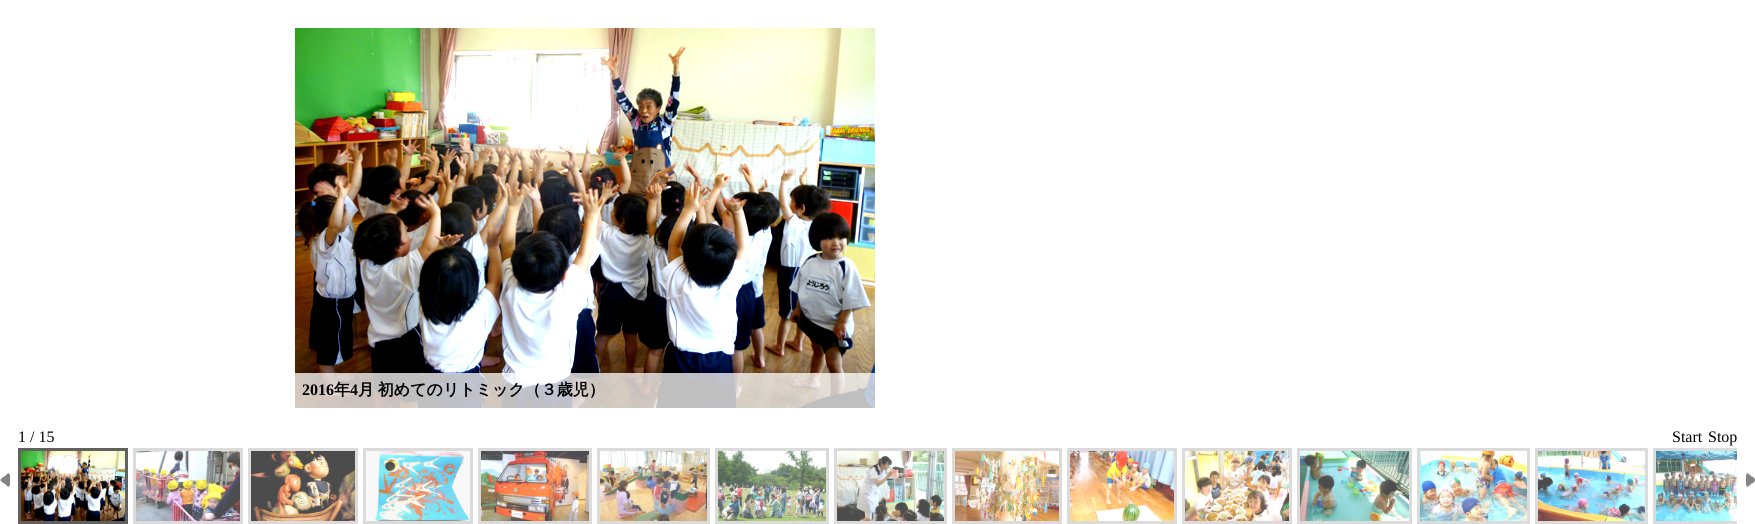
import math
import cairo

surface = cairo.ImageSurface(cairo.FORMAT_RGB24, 1755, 524)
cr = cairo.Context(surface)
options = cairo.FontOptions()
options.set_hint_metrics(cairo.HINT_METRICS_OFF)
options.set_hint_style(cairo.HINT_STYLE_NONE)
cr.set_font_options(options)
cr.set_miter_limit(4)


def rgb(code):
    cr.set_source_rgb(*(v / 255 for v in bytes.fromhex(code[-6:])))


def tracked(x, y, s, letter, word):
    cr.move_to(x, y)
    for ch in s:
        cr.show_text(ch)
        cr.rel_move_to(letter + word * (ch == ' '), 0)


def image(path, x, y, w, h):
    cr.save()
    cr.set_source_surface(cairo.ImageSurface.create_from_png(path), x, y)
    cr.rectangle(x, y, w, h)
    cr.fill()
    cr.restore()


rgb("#ffffff")
cr.paint()
image("img/1.png", 295, 28, 580, 380)
cr.set_source_rgba(1, 1, 1, 0.75)
cr.rectangle(295, 373, 580, 35)
cr.fill()
image("img/2.png", 0, 473, 10, 14)
cr.rectangle(19.5, 449.5, 107, 73)
rgb("#616161")
cr.set_line_width(3)
cr.stroke()
image("img/3.png", 21, 451, 104, 70)
cr.rectangle(134.5, 449.5, 107, 73)
rgb("#dbdbdb")
cr.stroke()
image("img/4.png", 136, 451, 104, 70)
cr.rectangle(249.5, 449.5, 107, 73)
cr.stroke()
image("img/5.png", 251, 451, 104, 70)
cr.rectangle(364.5, 449.5, 107, 73)
cr.stroke()
image("img/6.png", 366, 451, 104, 70)
cr.rectangle(479.5, 449.5, 111, 73)
cr.stroke()
image("img/7.png", 481, 451, 108, 70)
cr.rectangle(598.5, 449.5, 110, 73)
cr.stroke()
image("img/8.png", 600, 451, 107, 70)
cr.rectangle(716.5, 449.5, 111, 73)
cr.stroke()
image("img/9.png", 718, 451, 108, 70)
cr.rectangle(835.5, 449.5, 110, 73)
cr.stroke()
image("img/10.png", 837, 451, 107, 70)
cr.rectangle(953.5, 449.5, 107, 73)
cr.stroke()
image("img/11.png", 955, 451, 104, 70)
cr.rectangle(1068.5, 449.5, 107, 73)
cr.stroke()
image("img/12.png", 1070, 451, 104, 70)
cr.rectangle(1183.5, 449.5, 107, 73)
cr.stroke()
image("img/13.png", 1185, 451, 104, 70)
cr.rectangle(1298.5, 449.5, 112, 73)
cr.stroke()
image("img/14.png", 1300, 451, 109, 70)
cr.rectangle(1418.5, 449.5, 110, 73)
cr.stroke()
image("img/15.png", 1420, 451, 107, 70)
cr.rectangle(1536.5, 449.5, 110, 73)
cr.stroke()
image("img/16.png", 1538, 451, 107, 70)
cr.save()
cr.rectangle(18, 448, 1719, 76)
cr.clip()
cr.rectangle(1654.5, 449.5, 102, 73)
cr.stroke()
cr.restore()
image("img/17.png", 1656, 451, 81, 70)
image("img/18.png", 1746, 473, 9, 14)
cr.select_font_face("Liberation Serif", cairo.FONT_SLANT_NORMAL, cairo.FONT_WEIGHT_BOLD)
cr.set_font_size(16)
rgb("#000000")
cr.move_to(302, 395)
cr.show_text("2016")
cr.select_font_face("WenQuanYi Zen Hei", cairo.FONT_SLANT_NORMAL, cairo.FONT_WEIGHT_BOLD)
cr.move_to(334, 395)
cr.show_text("年")
cr.select_font_face("Liberation Serif", cairo.FONT_SLANT_NORMAL, cairo.FONT_WEIGHT_BOLD)
cr.move_to(350, 395)
cr.show_text("4")
cr.select_font_face("WenQuanYi Zen Hei", cairo.FONT_SLANT_NORMAL, cairo.FONT_WEIGHT_BOLD)
tracked(358, 395, "月 初めてのリトミック（３歳児）", 0, -1)
cr.select_font_face("Liberation Serif")
for x, y, s in [
    (18, 442, "1 / 15"),
    (1672, 442, "Start"),
    (1708, 442, "Stop"),
]:
    cr.move_to(x, y)
    cr.show_text(s)
surface.write_to_png("page.png")
